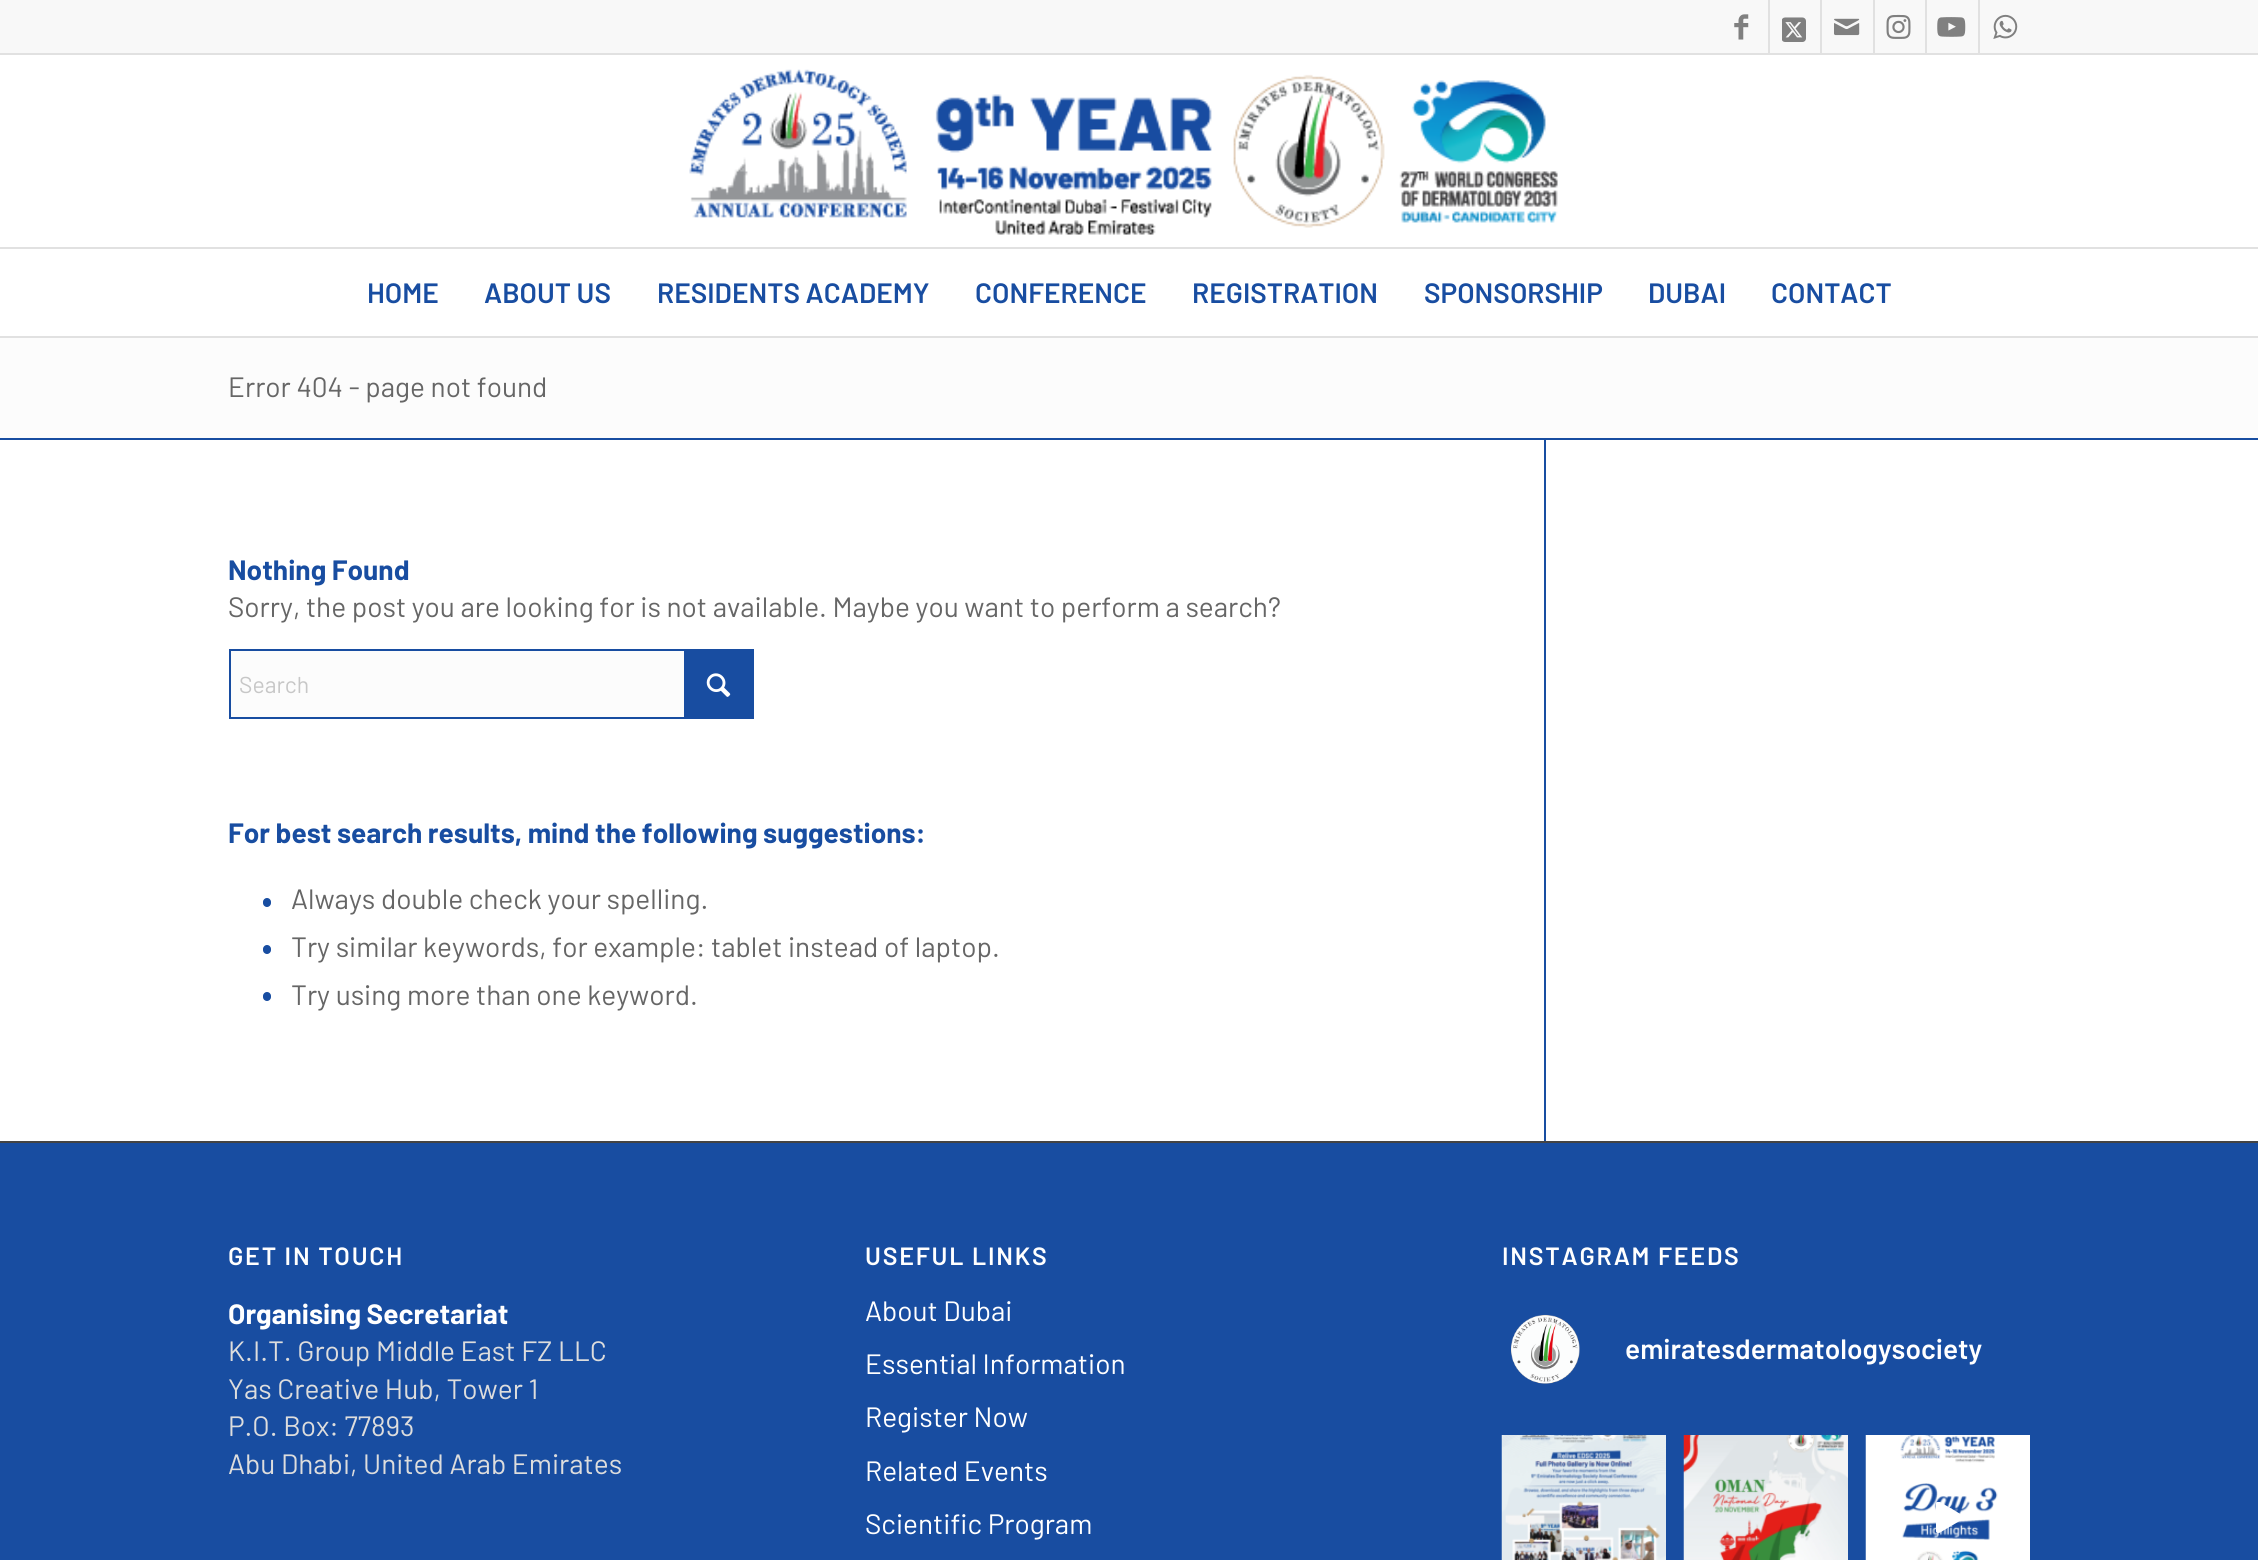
import math
import cairo

surface = cairo.ImageSurface(cairo.FORMAT_RGB24, 2258, 1560)
cr = cairo.Context(surface)
options = cairo.FontOptions()
options.set_hint_metrics(cairo.HINT_METRICS_OFF)
options.set_hint_style(cairo.HINT_STYLE_NONE)
cr.set_font_options(options)
cr.set_miter_limit(4)


def rgb(code):
    cr.set_source_rgb(*(v / 255 for v in bytes.fromhex(code[-6:])))


def tracked(x, y, s, letter, word):
    cr.move_to(x, y)
    for ch in s:
        cr.show_text(ch)
        cr.rel_move_to(letter + word * (ch == ' '), 0)


def rrect(x, y, w, h, r):
    cr.new_sub_path()
    for i, (u, v) in enumerate([(x + w - r, y + h - r), (x + r, y + h - r), (x + r, y + r), (x + w - r, y + r)]):
        cr.arc(u, v, r, i * math.pi / 2, (i + 1) * math.pi / 2)
    cr.close_path()


def image(path, x, y, w, h):
    cr.save()
    cr.set_source_surface(cairo.ImageSurface.create_from_png(path), x, y)
    cr.rectangle(x, y, w, h)
    cr.fill()
    cr.restore()


rgb("#ffffff")
cr.paint()
for x, y, w, h, color in [
    (0, 0, 2258, 53, "#f8f8f8"),
    (0, 53, 2258, 2, "#e1e1e1"),
    (1768, 0, 2, 53, "#e1e1e1"),
]:
    rgb(color)
    cr.rectangle(x, y, w, h)
    cr.fill()
image("img/1.png", 1734, 14, 15, 26)
cr.rectangle(1820, 0, 2, 53)
cr.fill()
image("img/2.png", 1782, 17, 24, 25)
cr.rectangle(1873, 0, 2, 53)
cr.fill()
image("img/3.png", 1834, 18, 26, 18)
cr.rectangle(1925, 0, 2, 53)
cr.fill()
image("img/4.png", 1886, 14, 25, 25)
cr.rectangle(1978, 0, 2, 53)
cr.fill()
image("img/5.png", 1937, 17, 29, 20)
image("img/6.png", 1993, 14, 25, 25)
cr.rectangle(0, 336, 2258, 2)
cr.fill()
image("img/7.png", 682, 55, 897, 180)
for x, y, w, h, color in [
    (0, 247, 2258, 2, "#e1e1e1"),
    (0, 338, 2258, 100, "#fcfcfc"),
    (0, 438, 2258, 2, "#184da1"),
    (1544, 439, 2, 702, "#184da1"),
    (231, 651, 453, 66, "#fcfcfc"),
]:
    rgb(color)
    cr.rectangle(x, y, w, h)
    cr.fill()
cr.rectangle(230, 650, 523, 68)
rgb("#184da1")
cr.stroke()
cr.rectangle(684, 651, 68, 66)
cr.fill()
image("img/8.png", 706, 673, 25, 24)
rrect(263, 898, 8, 9, 4)
cr.fill()
rrect(263, 945, 8, 9, 4)
cr.fill()
rrect(263, 992, 8, 9, 4)
cr.fill()
cr.rectangle(0, 1143, 2258, 417)
cr.fill()
rgb("#444444")
cr.rectangle(0, 1141, 2258, 2)
cr.fill()
image("img/9.png", 1511, 1314, 69, 70)
image("img/10.png", 1501, 1435, 165, 125)
image("img/11.png", 1683, 1435, 165, 125)
image("img/12.png", 1865, 1435, 165, 125)
image("img/13.png", 1936, 1502, 24, 31)
cr.select_font_face("Barlow SemiBold")
cr.set_font_size(28)
rgb("#184da1")
for x, y, s in [
    (367, 303, "HOME"),
    (484, 303, "ABOUT US"),
    (657, 303, "RESIDENTS ACADEMY"),
    (975, 303, "CONFERENCE"),
    (1192, 303, "REGISTRATION"),
    (1424, 303, "SPONSORSHIP"),
    (1648, 303, "DUBAI"),
    (1771, 303, "CONTACT"),
]:
    cr.move_to(x, y)
    cr.show_text(s)
cr.select_font_face("Barlow")
rgb("#666666")
cr.move_to(228, 397)
cr.show_text("Error 404 - page not found")
cr.select_font_face("Barlow", cairo.FONT_SLANT_NORMAL, cairo.FONT_WEIGHT_BOLD)
rgb("#184da1")
cr.move_to(228, 580)
cr.show_text("Nothing Found")
cr.select_font_face("Barlow")
rgb("#666666")
cr.move_to(228, 617)
cr.show_text("Sorry, the post you are looking for is not available. Maybe you want to perform a search?")
cr.set_font_size(23)
rgb("#c7c7c7")
cr.move_to(239, 693)
cr.show_text("Search")
cr.select_font_face("Barlow", cairo.FONT_SLANT_NORMAL, cairo.FONT_WEIGHT_BOLD)
cr.set_font_size(28)
rgb("#184da1")
cr.move_to(228, 843)
cr.show_text("For best search results, mind the following suggestions:")
cr.select_font_face("Barlow")
rgb("#666666")
for x, y, s in [
    (291, 909, "Always double check your spelling."),
    (291, 957, "Try similar keywords, for example: tablet instead of laptop."),
    (291, 1005, "Try using more than one keyword."),
]:
    cr.move_to(x, y)
    cr.show_text(s)
cr.select_font_face("Barlow SemiBold")
cr.set_font_size(25)
rgb("#ffffff")
tracked(228, 1265, "GET IN TOUCH", 1.75, 0)
cr.select_font_face("Barlow", cairo.FONT_SLANT_NORMAL, cairo.FONT_WEIGHT_BOLD)
cr.set_font_size(28)
cr.move_to(228, 1324)
cr.show_text("Organising Secretariat")
cr.select_font_face("Barlow")
rgb("#dddddd")
for x, y, s in [
    (228, 1361, "K.I.T. Group Middle East FZ LLC"),
    (228, 1399, "Yas Creative Hub, Tower 1"),
    (228, 1436, "P.O. Box: 77893"),
    (228, 1474, "Abu Dhabi, United Arab Emirates"),
]:
    cr.move_to(x, y)
    cr.show_text(s)
cr.select_font_face("Barlow SemiBold")
cr.set_font_size(25)
rgb("#ffffff")
tracked(865, 1265, "USEFUL LINKS", 1.75, 0)
cr.select_font_face("Barlow")
cr.set_font_size(28)
for x, y, s in [
    (865, 1321, "About Dubai"),
    (865, 1374, "Essential Information"),
    (865, 1427, "Register Now"),
    (865, 1481, "Related Events"),
    (865, 1534, "Scientific Program"),
]:
    cr.move_to(x, y)
    cr.show_text(s)
cr.select_font_face("Barlow SemiBold")
cr.set_font_size(25)
tracked(1502, 1265, "INSTAGRAM FEEDS", 1.75, 0)
cr.set_font_size(28)
cr.move_to(1625, 1359)
cr.show_text("emiratesdermatologysociety")
surface.write_to_png("page.png")
